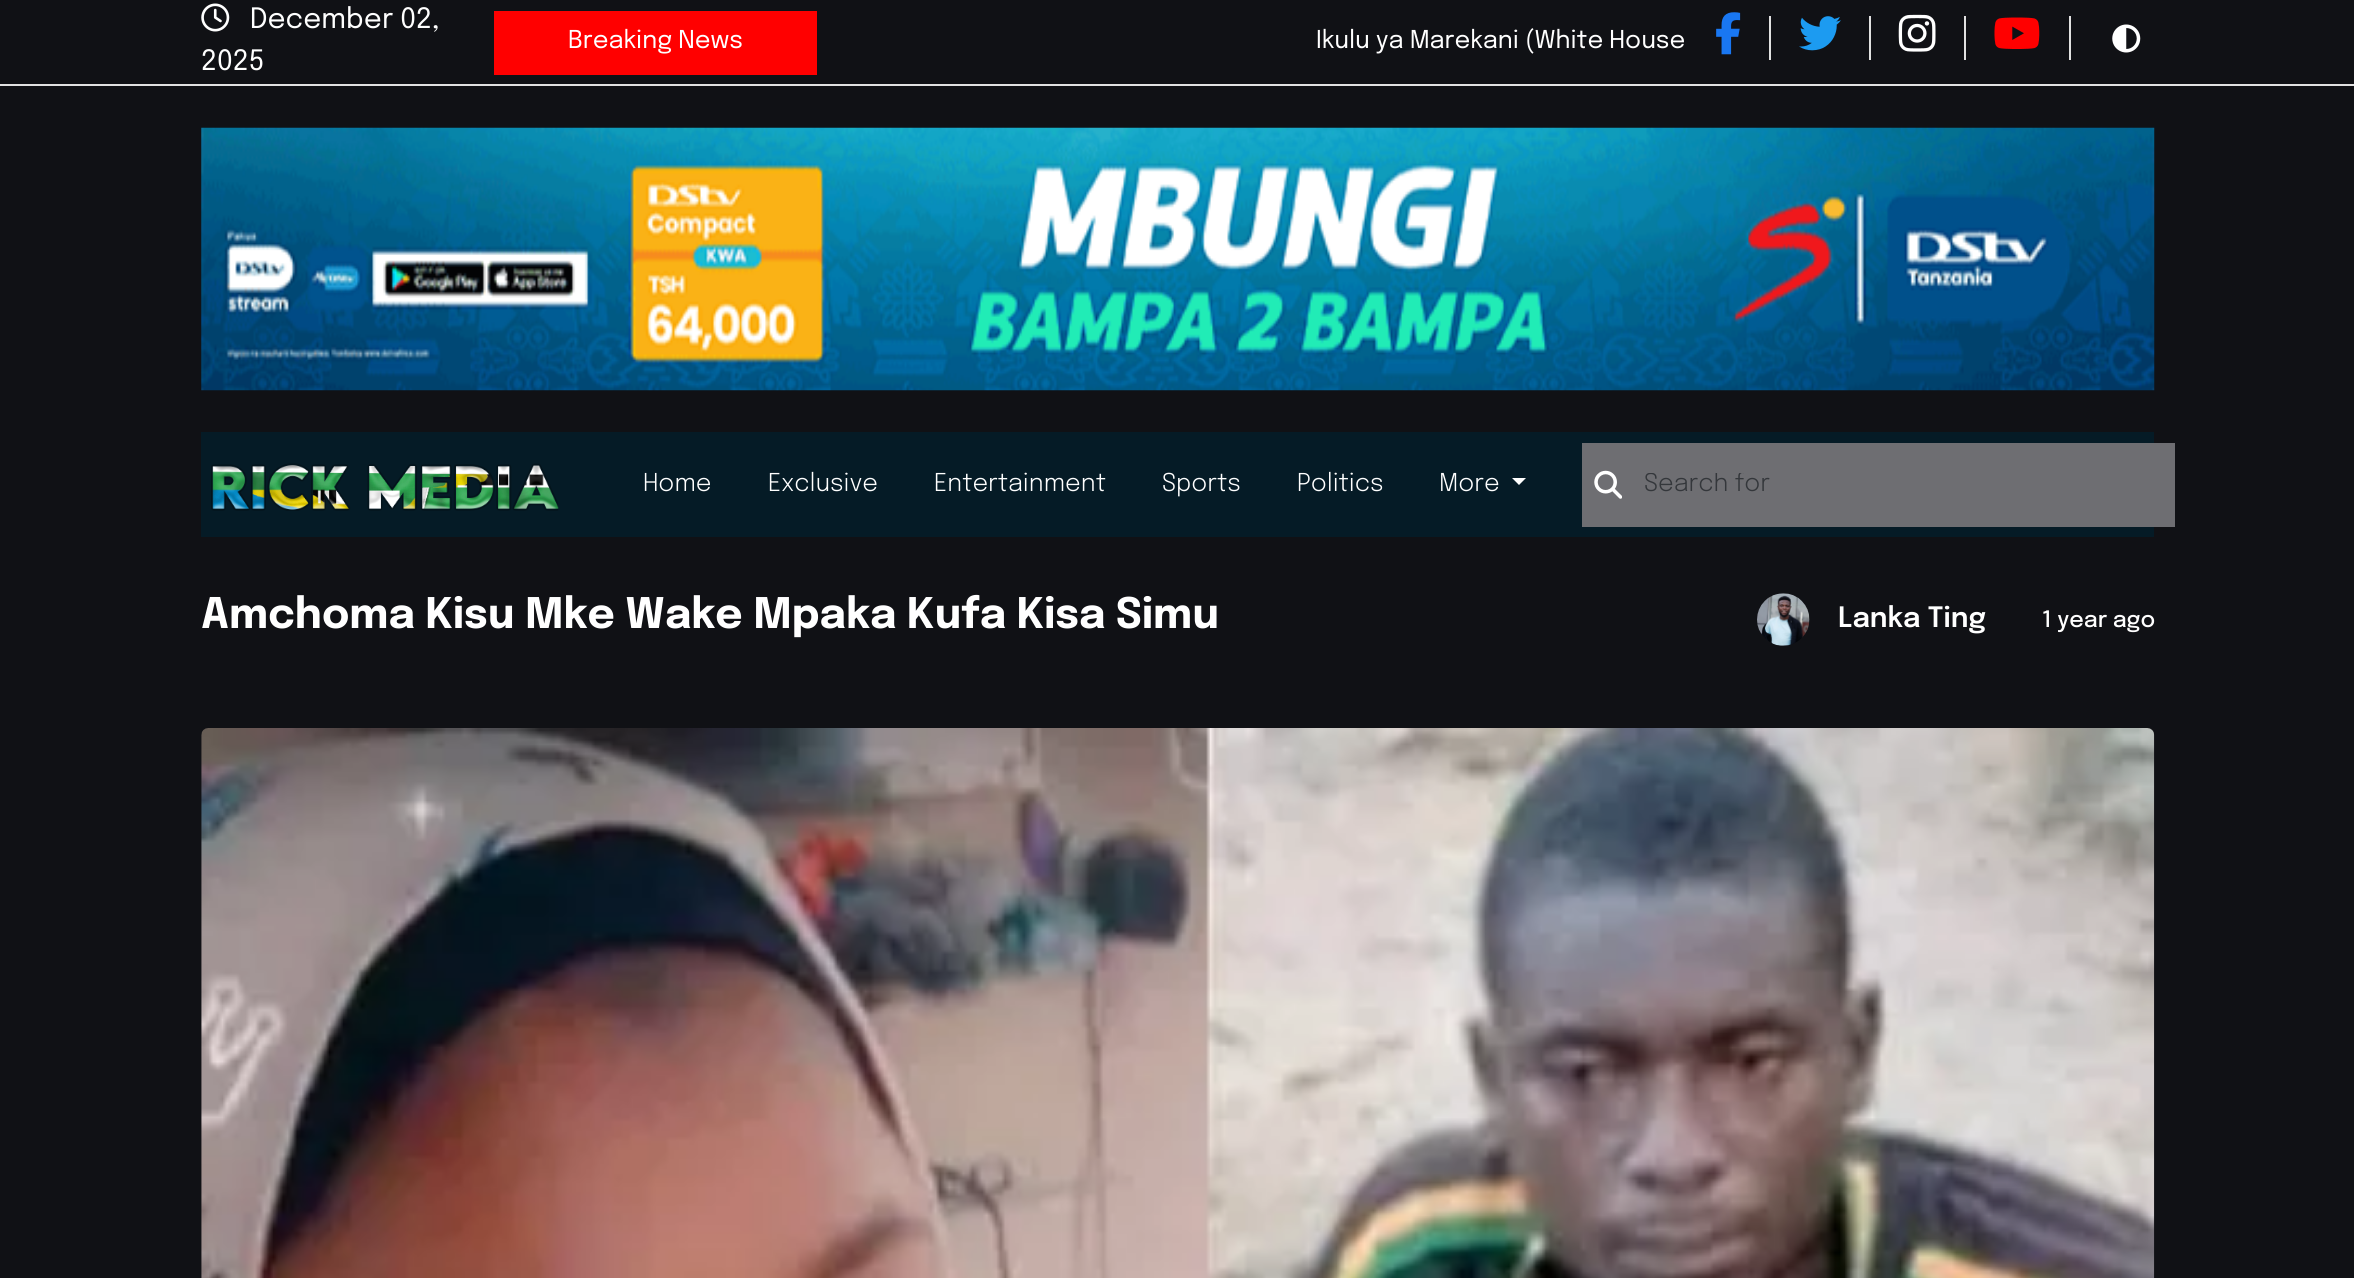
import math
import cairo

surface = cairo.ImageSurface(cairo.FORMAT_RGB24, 2354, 1278)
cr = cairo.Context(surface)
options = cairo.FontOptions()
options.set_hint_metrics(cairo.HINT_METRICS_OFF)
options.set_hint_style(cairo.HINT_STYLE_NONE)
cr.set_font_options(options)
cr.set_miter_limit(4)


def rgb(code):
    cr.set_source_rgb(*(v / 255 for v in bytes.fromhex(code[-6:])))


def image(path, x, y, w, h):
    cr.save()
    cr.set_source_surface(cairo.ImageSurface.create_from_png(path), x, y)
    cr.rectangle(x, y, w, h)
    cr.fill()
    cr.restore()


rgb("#101115")
cr.paint()
rgb("#e1e1e1")
cr.rectangle(0, 84, 2354, 2)
cr.fill()
image("img/1.png", 201, 3, 29, 29)
rgb("#ff0000")
cr.rectangle(494, 11, 323, 64)
cr.fill()
rgb("#e1e1e1")
cr.rectangle(1769, 16, 2, 44)
cr.fill()
image("img/2.png", 1716, 12, 25, 43)
cr.rectangle(1869, 16, 2, 44)
cr.fill()
image("img/3.png", 1799, 16, 42, 35)
cr.rectangle(1964, 16, 2, 44)
cr.fill()
image("img/4.png", 1898, 14, 38, 38)
cr.rectangle(2069, 16, 2, 44)
cr.fill()
image("img/5.png", 1994, 17, 46, 32)
image("img/6.png", 2112, 24, 29, 29)
image("img/7.png", 201, 127, 1954, 264)
rgb("#051b26")
cr.rectangle(201, 432, 1953, 105)
cr.fill()
image("img/8.png", 211, 463, 348, 48)
rgb("#ffffff")
cr.new_path()
cr.move_to(1512, 478)
cr.line_to(1526, 478)
cr.line_to(1519, 485)
cr.close_path()
cr.fill()
rgb("#6e6e72")
cr.rectangle(1582, 443, 593, 84)
cr.fill()
image("img/9.png", 1594, 470, 28, 29)
image("img/10.png", 1757, 593, 53, 53)
image("img/11.png", 201, 728, 1954, 550)
cr.select_font_face("Epilogue")
cr.set_font_size(28)
rgb("#ffffff")
cr.move_to(250, 28)
cr.show_text("December 02,")
cr.move_to(201, 70)
cr.show_text("2025")
cr.set_font_size(24.5)
cr.move_to(568, 48)
cr.show_text("Breaking News")
cr.move_to(1316, 48)
cr.show_text("Ikulu ya Marekani (White House")
cr.select_font_face("Epilogue Light")
for x, y, s in [
    (643, 491, "Home"),
    (768, 491, "Exclusive"),
    (934, 491, "Entertainment"),
    (1162, 491, "Sports"),
    (1297, 491, "Politics"),
    (1439, 491, "More"),
]:
    cr.move_to(x, y)
    cr.show_text(s)
cr.save()
cr.rectangle(1643, 473, 483, 24)
cr.clip()
rgb("#34373b")
cr.move_to(1644, 491)
cr.show_text("Search for")
cr.restore()
cr.select_font_face("Epilogue", cairo.FONT_SLANT_NORMAL, cairo.FONT_WEIGHT_BOLD)
cr.set_font_size(42)
cr.move_to(201, 628)
cr.show_text("Amchoma Kisu Mke Wake Mpaka Kufa Kisa Simu")
cr.select_font_face("Epilogue SemiBold")
cr.set_font_size(28)
cr.move_to(1838, 627)
cr.show_text("Lanka Ting")
cr.select_font_face("Epilogue Medium")
cr.set_font_size(22.5)
cr.move_to(2042, 627)
cr.show_text("1 year ago")
surface.write_to_png("page.png")
